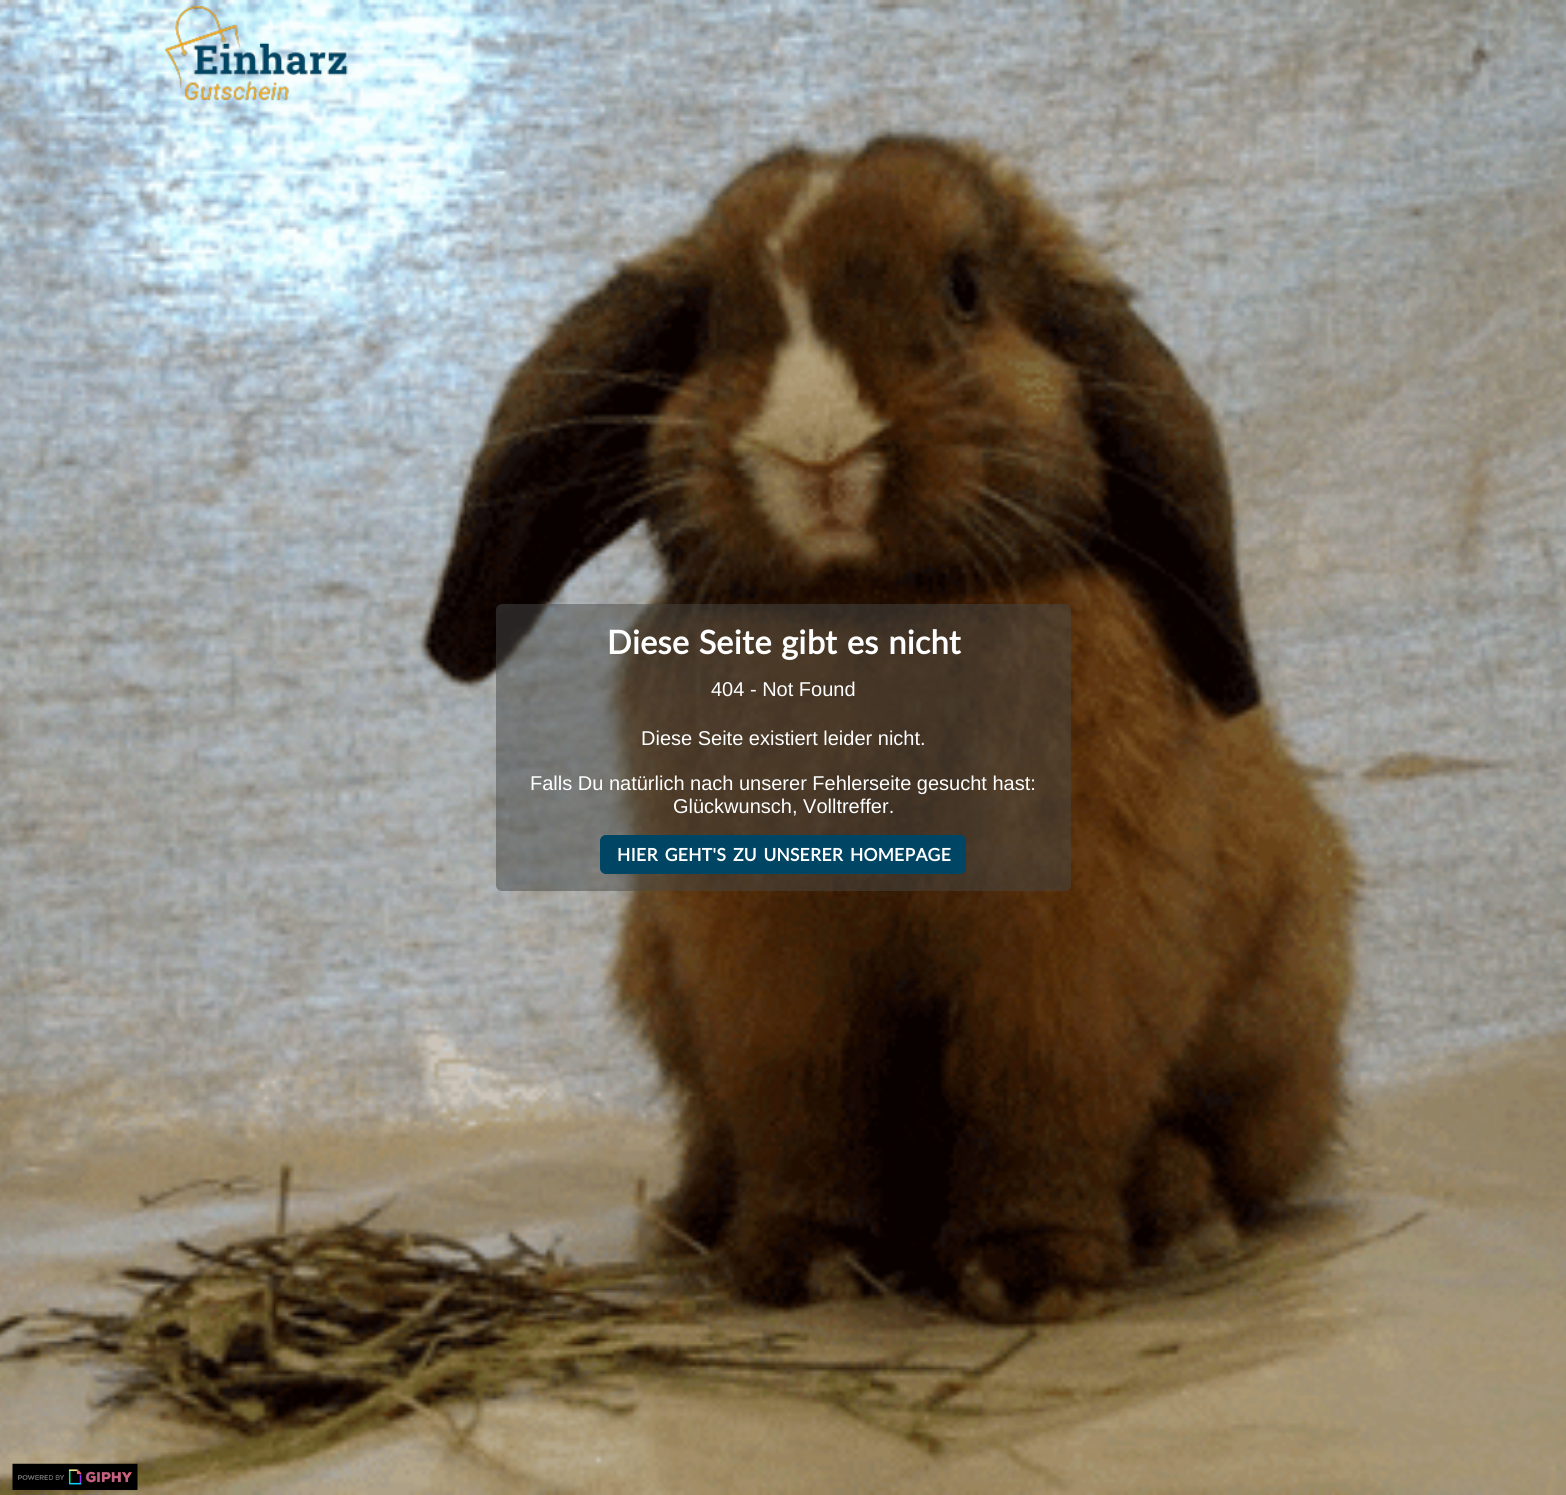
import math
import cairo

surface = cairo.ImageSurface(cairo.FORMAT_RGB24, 1566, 1495)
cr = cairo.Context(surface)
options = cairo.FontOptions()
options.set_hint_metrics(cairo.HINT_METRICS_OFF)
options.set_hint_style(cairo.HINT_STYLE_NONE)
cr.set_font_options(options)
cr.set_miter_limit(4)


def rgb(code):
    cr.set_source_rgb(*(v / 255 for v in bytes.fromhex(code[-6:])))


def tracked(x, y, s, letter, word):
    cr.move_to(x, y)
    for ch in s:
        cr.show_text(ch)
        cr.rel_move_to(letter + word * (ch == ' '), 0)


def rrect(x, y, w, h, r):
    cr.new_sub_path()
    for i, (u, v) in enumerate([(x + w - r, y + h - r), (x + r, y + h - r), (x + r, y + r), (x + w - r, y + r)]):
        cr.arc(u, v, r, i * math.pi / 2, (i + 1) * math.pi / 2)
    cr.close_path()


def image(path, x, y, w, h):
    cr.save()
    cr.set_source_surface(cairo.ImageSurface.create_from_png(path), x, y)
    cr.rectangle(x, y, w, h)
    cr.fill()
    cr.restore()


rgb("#ffffff")
cr.paint()
image("img/2.png", 0, 0, 1566, 1495)
image("img/1.png", 164, 6, 184, 95)
cr.set_source_rgba(0.278, 0.282, 0.278, 0.5)
rrect(496, 604, 575, 287, 6)
cr.fill()
rgb("#004563")
rrect(600.5, 835.5, 365, 38, 5.5)
cr.fill_preserve()
cr.set_line_width(1)
cr.stroke()
image("img/3.png", 12, 1463, 126, 27)
cr.select_font_face("Lato", cairo.FONT_SLANT_NORMAL, cairo.FONT_WEIGHT_BOLD)
cr.set_font_size(32.5)
rgb("#ffffff")
tracked(607, 654, "Diese Seite gibt es nicht", 0.25, 3)
cr.select_font_face("Liberation Sans")
cr.set_font_size(20)
for x, y, s in [
    (711, 696, "404 - Not Found"),
    (641, 745, "Diese Seite existiert leider nicht."),
    (530, 790, "Falls Du natürlich nach unserer Fehlerseite gesucht hast:"),
    (673, 813, "Glückwunsch, Volltreffer."),
]:
    cr.move_to(x, y)
    cr.show_text(s)
cr.select_font_face("Lato", cairo.FONT_SLANT_NORMAL, cairo.FONT_WEIGHT_BOLD)
cr.set_font_size(17.5)
tracked(617, 861, "HIER GEHT'S ZU UNSERER HOMEPAGE", 0.25, 3)
surface.write_to_png("page.png")
